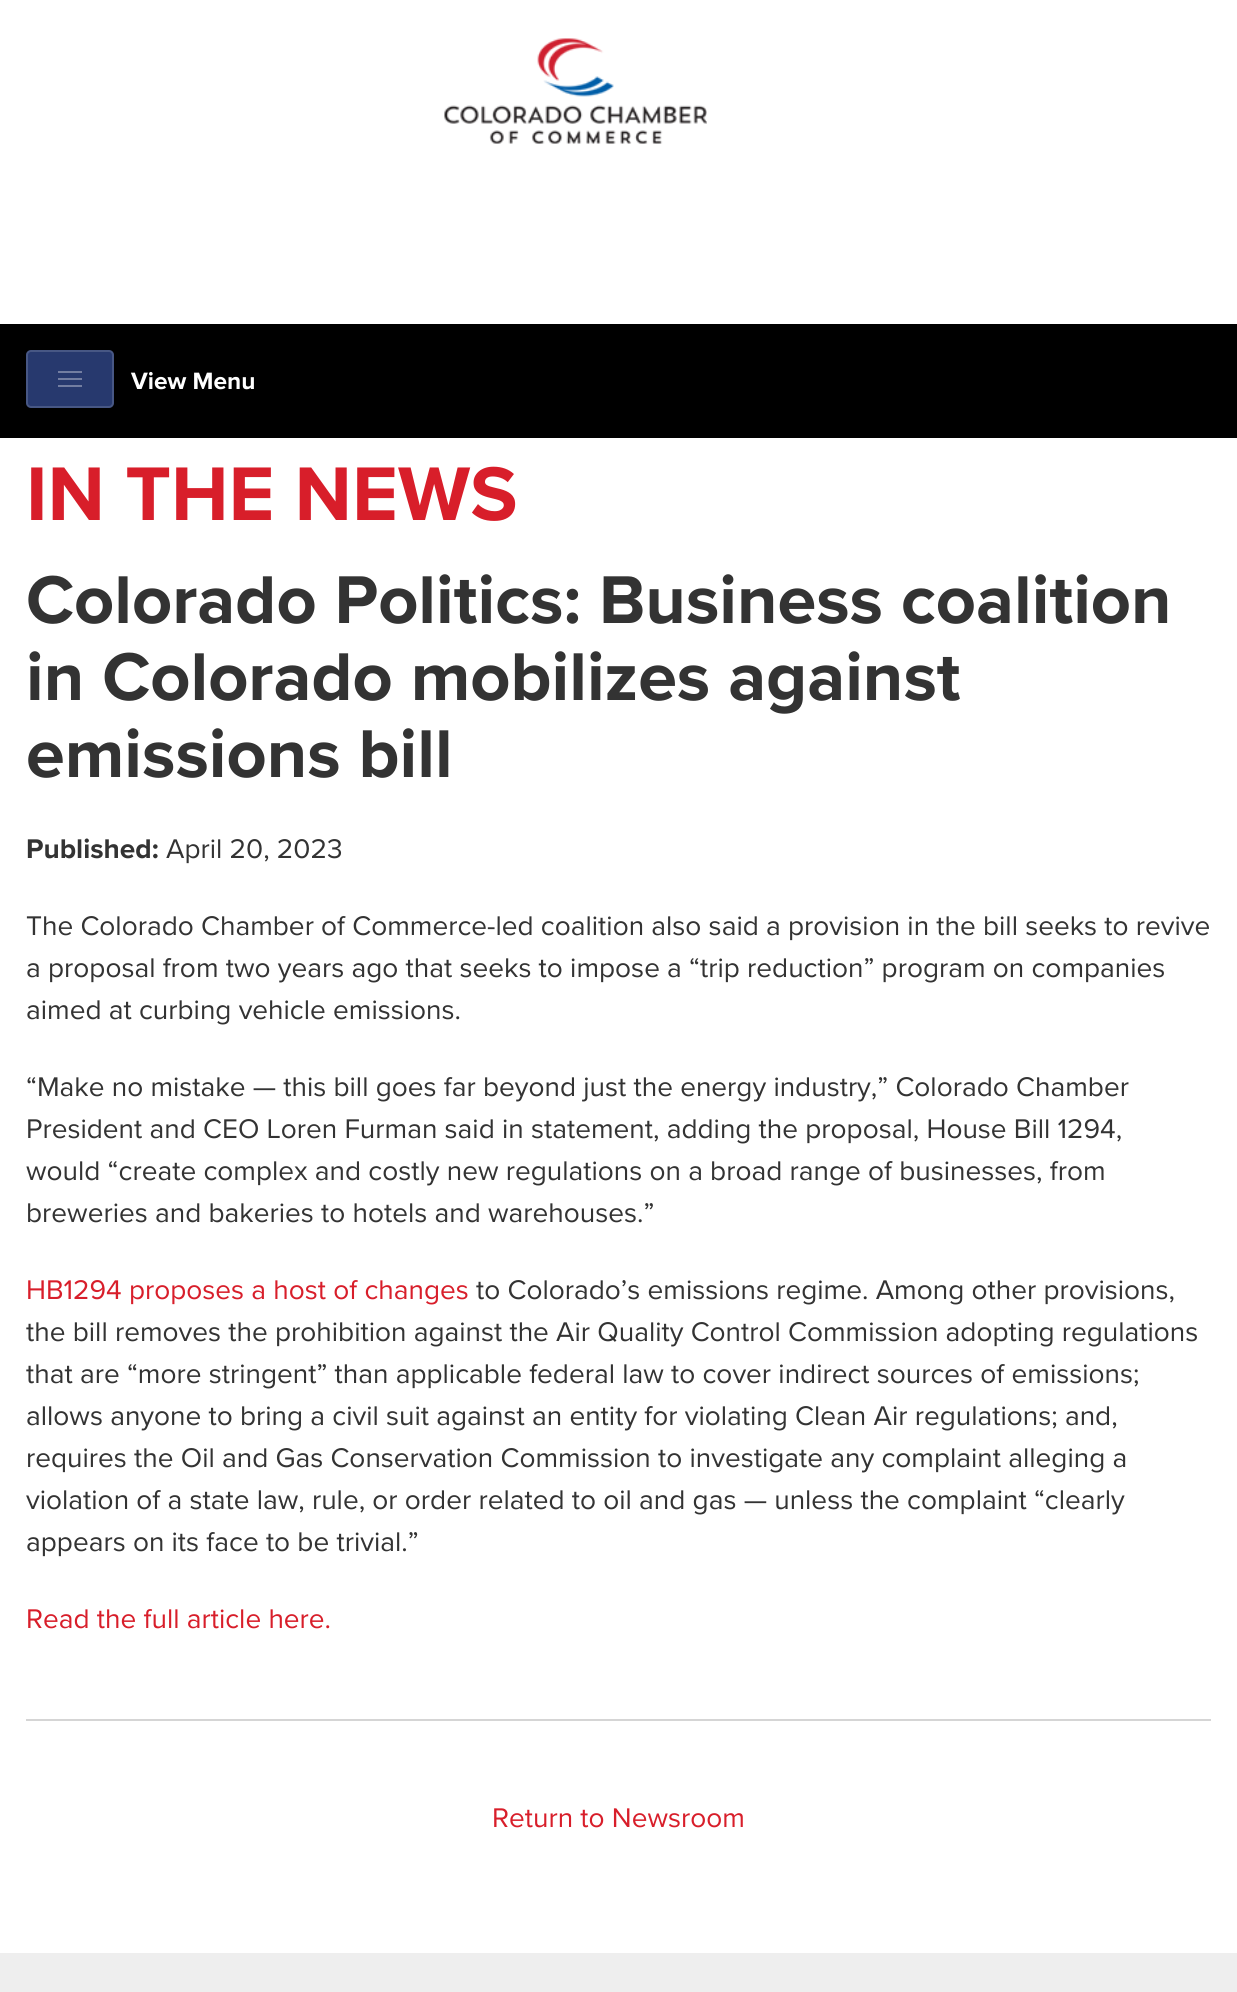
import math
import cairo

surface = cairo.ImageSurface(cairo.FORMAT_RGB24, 1237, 1992)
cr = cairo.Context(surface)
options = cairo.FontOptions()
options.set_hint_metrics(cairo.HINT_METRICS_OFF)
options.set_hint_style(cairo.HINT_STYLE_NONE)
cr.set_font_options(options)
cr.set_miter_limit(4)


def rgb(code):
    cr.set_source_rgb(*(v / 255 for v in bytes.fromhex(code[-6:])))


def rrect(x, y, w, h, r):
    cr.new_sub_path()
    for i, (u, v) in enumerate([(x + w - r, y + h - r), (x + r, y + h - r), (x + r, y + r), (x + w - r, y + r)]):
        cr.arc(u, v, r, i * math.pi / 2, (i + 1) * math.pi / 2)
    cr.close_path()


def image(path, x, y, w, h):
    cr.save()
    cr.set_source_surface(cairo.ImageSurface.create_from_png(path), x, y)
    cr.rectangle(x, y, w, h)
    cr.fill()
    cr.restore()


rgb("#ffffff")
cr.paint()
image("img/1.png", 444, 38, 263, 106)
rgb("#000000")
cr.rectangle(0, 324, 1237, 114)
cr.fill()
rgb("#27396e")
rrect(26, 350, 88, 58, 5)
cr.fill()
rrect(27, 351, 86, 56, 4)
cr.set_source_rgba(1, 1, 1, 0.15)
cr.stroke()
for x, y, w, h, color in [
    (58, 371, 24, 2, "#737ea1"),
    (58, 378, 24, 2, "#737ea1"),
    (58, 385, 24, 2, "#737ea1"),
    (26, 1719, 1185, 2, "#d5d5d5"),
    (0, 1953, 1237, 39, "#eeeeee"),
]:
    rgb(color)
    cr.rectangle(x, y, w, h)
    cr.fill()
cr.select_font_face("Proxima Nova", cairo.FONT_SLANT_NORMAL, cairo.FONT_WEIGHT_BOLD)
cr.set_font_size(24.5)
rgb("#ffffff")
cr.move_to(131, 389)
cr.show_text("View Menu")
cr.set_font_size(78.75)
rgb("#d81e2a")
cr.move_to(26, 520)
cr.show_text("IN THE NEWS")
cr.set_font_size(70)
rgb("#333333")
for x, y, s in [
    (26, 623, "Colorado Politics: Business coalition"),
    (26, 700, "in Colorado mobilizes against"),
    (26, 777, "emissions bill"),
]:
    cr.move_to(x, y)
    cr.show_text(s)
cr.set_font_size(28)
cr.move_to(26, 858)
cr.show_text("Published:")
cr.select_font_face("Proxima Nova")
for x, y, s in [
    (166, 858, "April 20, 2023"),
    (26, 935, "The Colorado Chamber of Commerce-led coalition also said a provision in the bill seeks to revive"),
    (26, 977, "a proposal from two years ago that seeks to impose a “trip reduction” program on companies"),
    (26, 1019, "aimed at curbing vehicle emissions."),
    (26, 1096, "“Make no mistake — this bill goes far beyond just the energy industry,” Colorado Chamber"),
    (26, 1138, "President and CEO Loren Furman said in statement, adding the proposal, House Bill 1294,"),
    (26, 1180, "would “create complex and costly new regulations on a broad range of businesses, from"),
    (26, 1222, "breweries and bakeries to hotels and warehouses.”"),
]:
    cr.move_to(x, y)
    cr.show_text(s)
rgb("#d81e2a")
cr.move_to(26, 1299)
cr.show_text("HB1294 proposes a host of changes")
rgb("#333333")
for x, y, s in [
    (476, 1299, "to Colorado’s emissions regime. Among other provisions,"),
    (26, 1341, "the bill removes the prohibition against the Air Quality Control Commission adopting regulations"),
    (26, 1383, "that are “more stringent” than applicable federal law to cover indirect sources of emissions;"),
    (26, 1425, "allows anyone to bring a civil suit against an entity for violating Clean Air regulations; and,"),
    (26, 1467, "requires the Oil and Gas Conservation Commission to investigate any complaint alleging a"),
    (26, 1509, "violation of a state law, rule, or order related to oil and gas — unless the complaint “clearly"),
    (26, 1551, "appears on its face to be trivial.”"),
]:
    cr.move_to(x, y)
    cr.show_text(s)
rgb("#d81e2a")
cr.move_to(26, 1628)
cr.show_text("Read the full article here.")
cr.move_to(492, 1827)
cr.show_text("Return to Newsroom")
surface.write_to_png("page.png")
